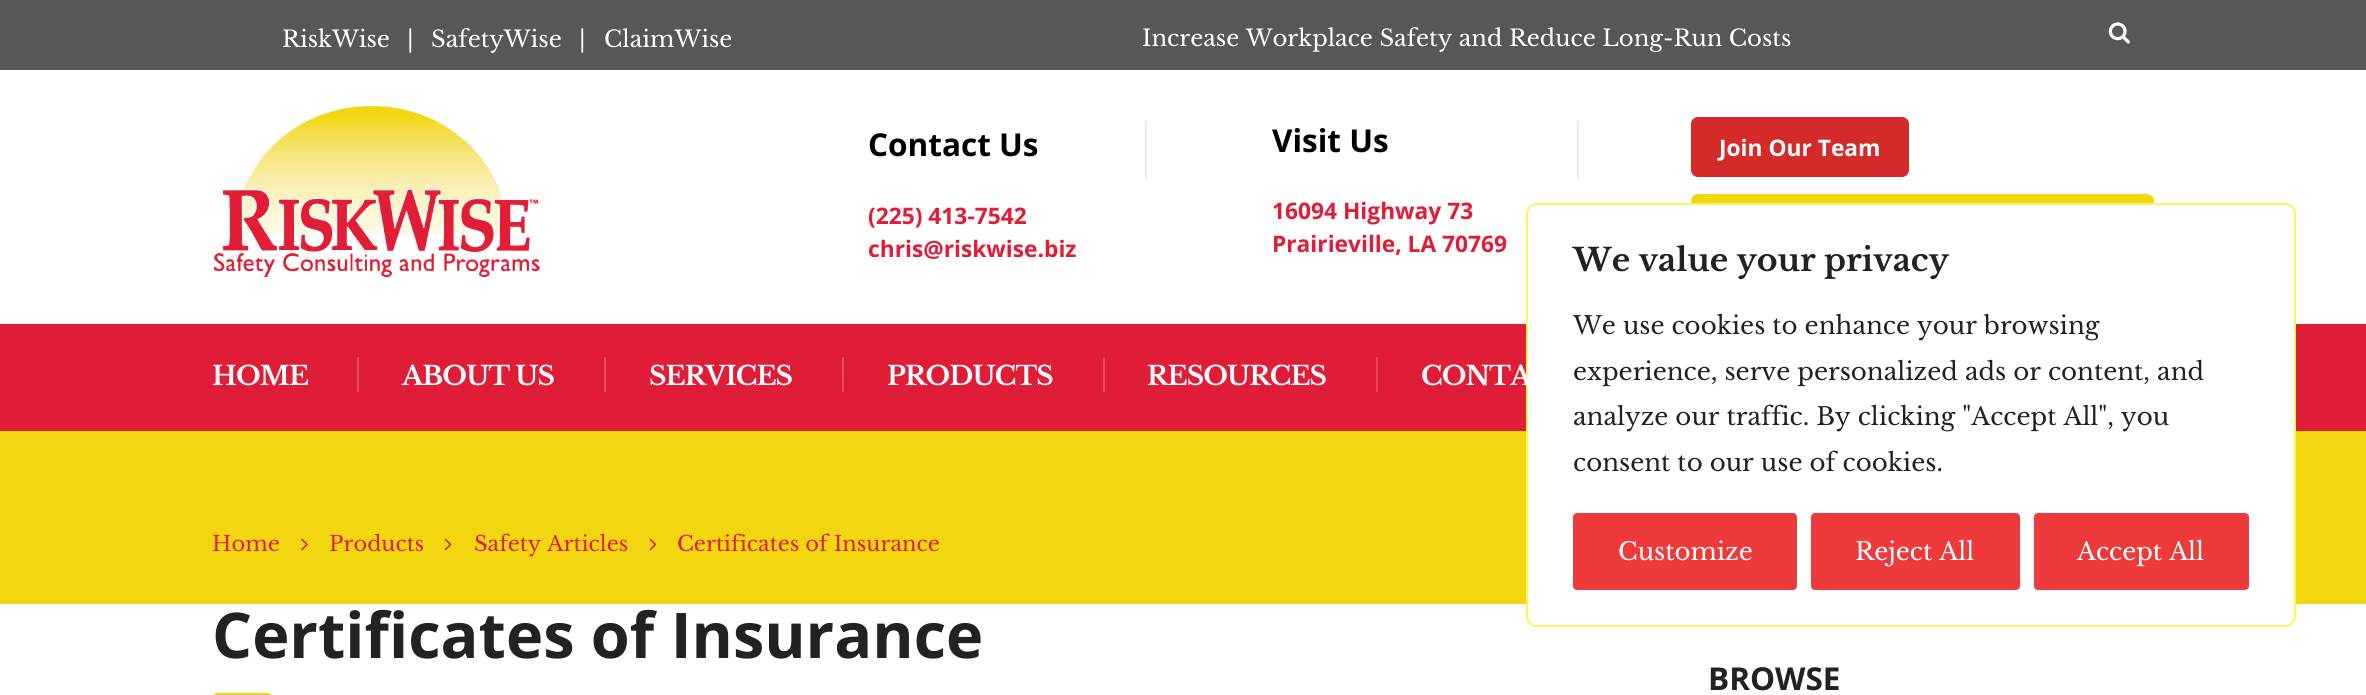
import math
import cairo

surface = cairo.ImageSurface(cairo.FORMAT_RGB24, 2366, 695)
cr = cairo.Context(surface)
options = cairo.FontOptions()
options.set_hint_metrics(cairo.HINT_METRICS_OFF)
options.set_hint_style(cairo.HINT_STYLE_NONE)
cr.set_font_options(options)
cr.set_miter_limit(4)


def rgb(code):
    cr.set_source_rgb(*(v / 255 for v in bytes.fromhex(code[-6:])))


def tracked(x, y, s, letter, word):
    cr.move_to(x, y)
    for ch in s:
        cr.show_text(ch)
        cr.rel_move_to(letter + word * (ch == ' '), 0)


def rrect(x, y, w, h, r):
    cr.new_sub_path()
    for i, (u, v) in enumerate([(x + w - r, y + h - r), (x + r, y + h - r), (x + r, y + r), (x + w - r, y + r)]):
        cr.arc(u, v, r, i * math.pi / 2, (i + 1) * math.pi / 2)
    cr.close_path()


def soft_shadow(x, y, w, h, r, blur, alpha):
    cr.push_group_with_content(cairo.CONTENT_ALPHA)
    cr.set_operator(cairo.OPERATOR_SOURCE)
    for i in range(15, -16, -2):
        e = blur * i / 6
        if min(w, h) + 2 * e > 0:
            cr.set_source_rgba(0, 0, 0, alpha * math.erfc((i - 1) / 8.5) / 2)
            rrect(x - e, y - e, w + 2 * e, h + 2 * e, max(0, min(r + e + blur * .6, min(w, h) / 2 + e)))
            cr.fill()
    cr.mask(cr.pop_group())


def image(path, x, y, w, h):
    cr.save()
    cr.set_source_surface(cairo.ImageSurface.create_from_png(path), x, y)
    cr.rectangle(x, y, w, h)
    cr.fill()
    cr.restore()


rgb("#ffffff")
cr.paint()
rgb("#585657")
cr.rectangle(0, 0, 2366, 70)
cr.fill()
image("img/1.png", 2108, 22, 22, 22)
image("img/2.png", 214, 106, 326, 172)
rgb("#ebebeb")
cr.rectangle(1145, 121, 2, 59)
cr.fill()
cr.rectangle(1577, 121, 2, 59)
cr.fill()
rgb("#d52a2a")
rrect(1691, 117, 218, 60, 7)
cr.fill()
rgb("#f2d610")
rrect(1691, 194, 463, 67, 7)
cr.fill()
for x, y, w, h, color in [
    (0, 324, 2366, 107, "#df1d37"),
    (357, 357, 2, 35, "#e54a5f"),
    (604, 357, 2, 35, "#e54a5f"),
    (842, 357, 2, 35, "#e54a5f"),
    (1103, 357, 2, 35, "#e54a5f"),
    (1376, 357, 2, 35, "#e54a5f"),
    (0, 431, 2366, 173, "#f2d610"),
]:
    rgb(color)
    cr.rectangle(x, y, w, h)
    cr.fill()
image("img/3.png", 301, 538, 7, 13)
image("img/4.png", 444, 538, 8, 13)
image("img/5.png", 649, 538, 8, 13)
rrect(212, 693, 61, 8, 5.5)
cr.fill()
cr.save()
rrect(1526, 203, 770, 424, 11)
cr.clip()
rgb("#acabab")
soft_shadow(1526, 201, 770, 424, 11, 9, 0.3)
cr.restore()
rgb("#ffffff")
rrect(1527, 204, 768, 422, 10)
cr.fill_preserve()
rgb("#fdf559")
cr.stroke()
rgb("#ee3a3a")
rrect(1575, 515, 220, 73, 2)
cr.fill_preserve()
cr.set_line_width(4)
cr.stroke()
rrect(1813, 515, 205, 73, 2)
cr.fill_preserve()
cr.stroke()
rrect(2036, 515, 211, 73, 2)
cr.fill_preserve()
cr.stroke()
cr.select_font_face("Libre Baskerville")
cr.set_font_size(22.75)
rgb("#ffffff")
for x, y, s in [
    (282, 47, "RiskWise"),
    (407, 47, "|"),
    (431, 47, "SafetyWise"),
    (579, 47, "|"),
    (604, 47, "ClaimWise"),
    (1142, 46, "Increase Workplace Safety and Reduce Long-Run Costs"),
]:
    cr.move_to(x, y)
    cr.show_text(s)
cr.select_font_face("Open Sans", cairo.FONT_SLANT_NORMAL, cairo.FONT_WEIGHT_BOLD)
cr.set_font_size(31.5)
rgb("#000000")
cr.move_to(868, 156)
cr.show_text("Contact Us")
cr.set_font_size(22.75)
rgb("#df1d37")
cr.move_to(868, 224)
cr.show_text("(225) 413-7542")
cr.move_to(868, 257)
cr.show_text("chris@riskwise.biz")
cr.set_font_size(31.5)
rgb("#000000")
cr.move_to(1272, 152)
cr.show_text("Visit Us")
cr.set_font_size(22.75)
rgb("#df1d37")
cr.move_to(1272, 219)
cr.show_text("16094 Highway 73")
cr.move_to(1272, 252)
cr.show_text("Prairieville, LA 70769")
rgb("#ffffff")
cr.move_to(1719, 156)
cr.show_text("Join Our Team")
cr.select_font_face("Libre Baskerville", cairo.FONT_SLANT_NORMAL, cairo.FONT_WEIGHT_BOLD)
cr.set_font_size(26.25)
for x, y, s in [
    (212, 385, "HOME"),
    (402, 385, "ABOUT US"),
    (649, 385, "SERVICES"),
    (887, 385, "PRODUCTS"),
    (1147, 385, "RESOURCES"),
    (1421, 385, "CONTA"),
]:
    tracked(x, y, s, -0.9, 0)
cr.select_font_face("Libre Baskerville")
cr.set_font_size(21)
rgb("#df1d37")
for x, y, s in [
    (212, 551, "Home"),
    (329, 551, "Products"),
    (474, 551, "Safety Articles"),
    (677, 551, "Certificates of Insurance"),
]:
    cr.move_to(x, y)
    cr.show_text(s)
cr.select_font_face("Open Sans", cairo.FONT_SLANT_NORMAL, cairo.FONT_WEIGHT_BOLD)
cr.set_font_size(63)
rgb("#222222")
cr.move_to(212, 658)
cr.show_text("Certificates of Insurance")
cr.set_font_size(31.5)
cr.move_to(1708, 690)
cr.show_text("BROWSE")
cr.select_font_face("Libre Baskerville", cairo.FONT_SLANT_NORMAL, cairo.FONT_WEIGHT_BOLD)
cr.move_to(1573, 271)
cr.show_text("We value your privacy")
cr.select_font_face("Libre Baskerville")
cr.set_font_size(24.5)
for x, y, s in [
    (1573, 334, "We use cookies to enhance your browsing"),
    (1573, 380, "experience, serve personalized ads or content, and"),
    (1573, 425, "analyze our traffic. By clicking \"Accept All\", you"),
    (1573, 471, "consent to our use of cookies."),
]:
    cr.move_to(x, y)
    cr.show_text(s)
rgb("#ffffff")
for x, y, s in [
    (1618, 560, "Customize"),
    (1855, 560, "Reject All"),
    (2077, 560, "Accept All"),
]:
    cr.move_to(x, y)
    cr.show_text(s)
surface.write_to_png("page.png")
